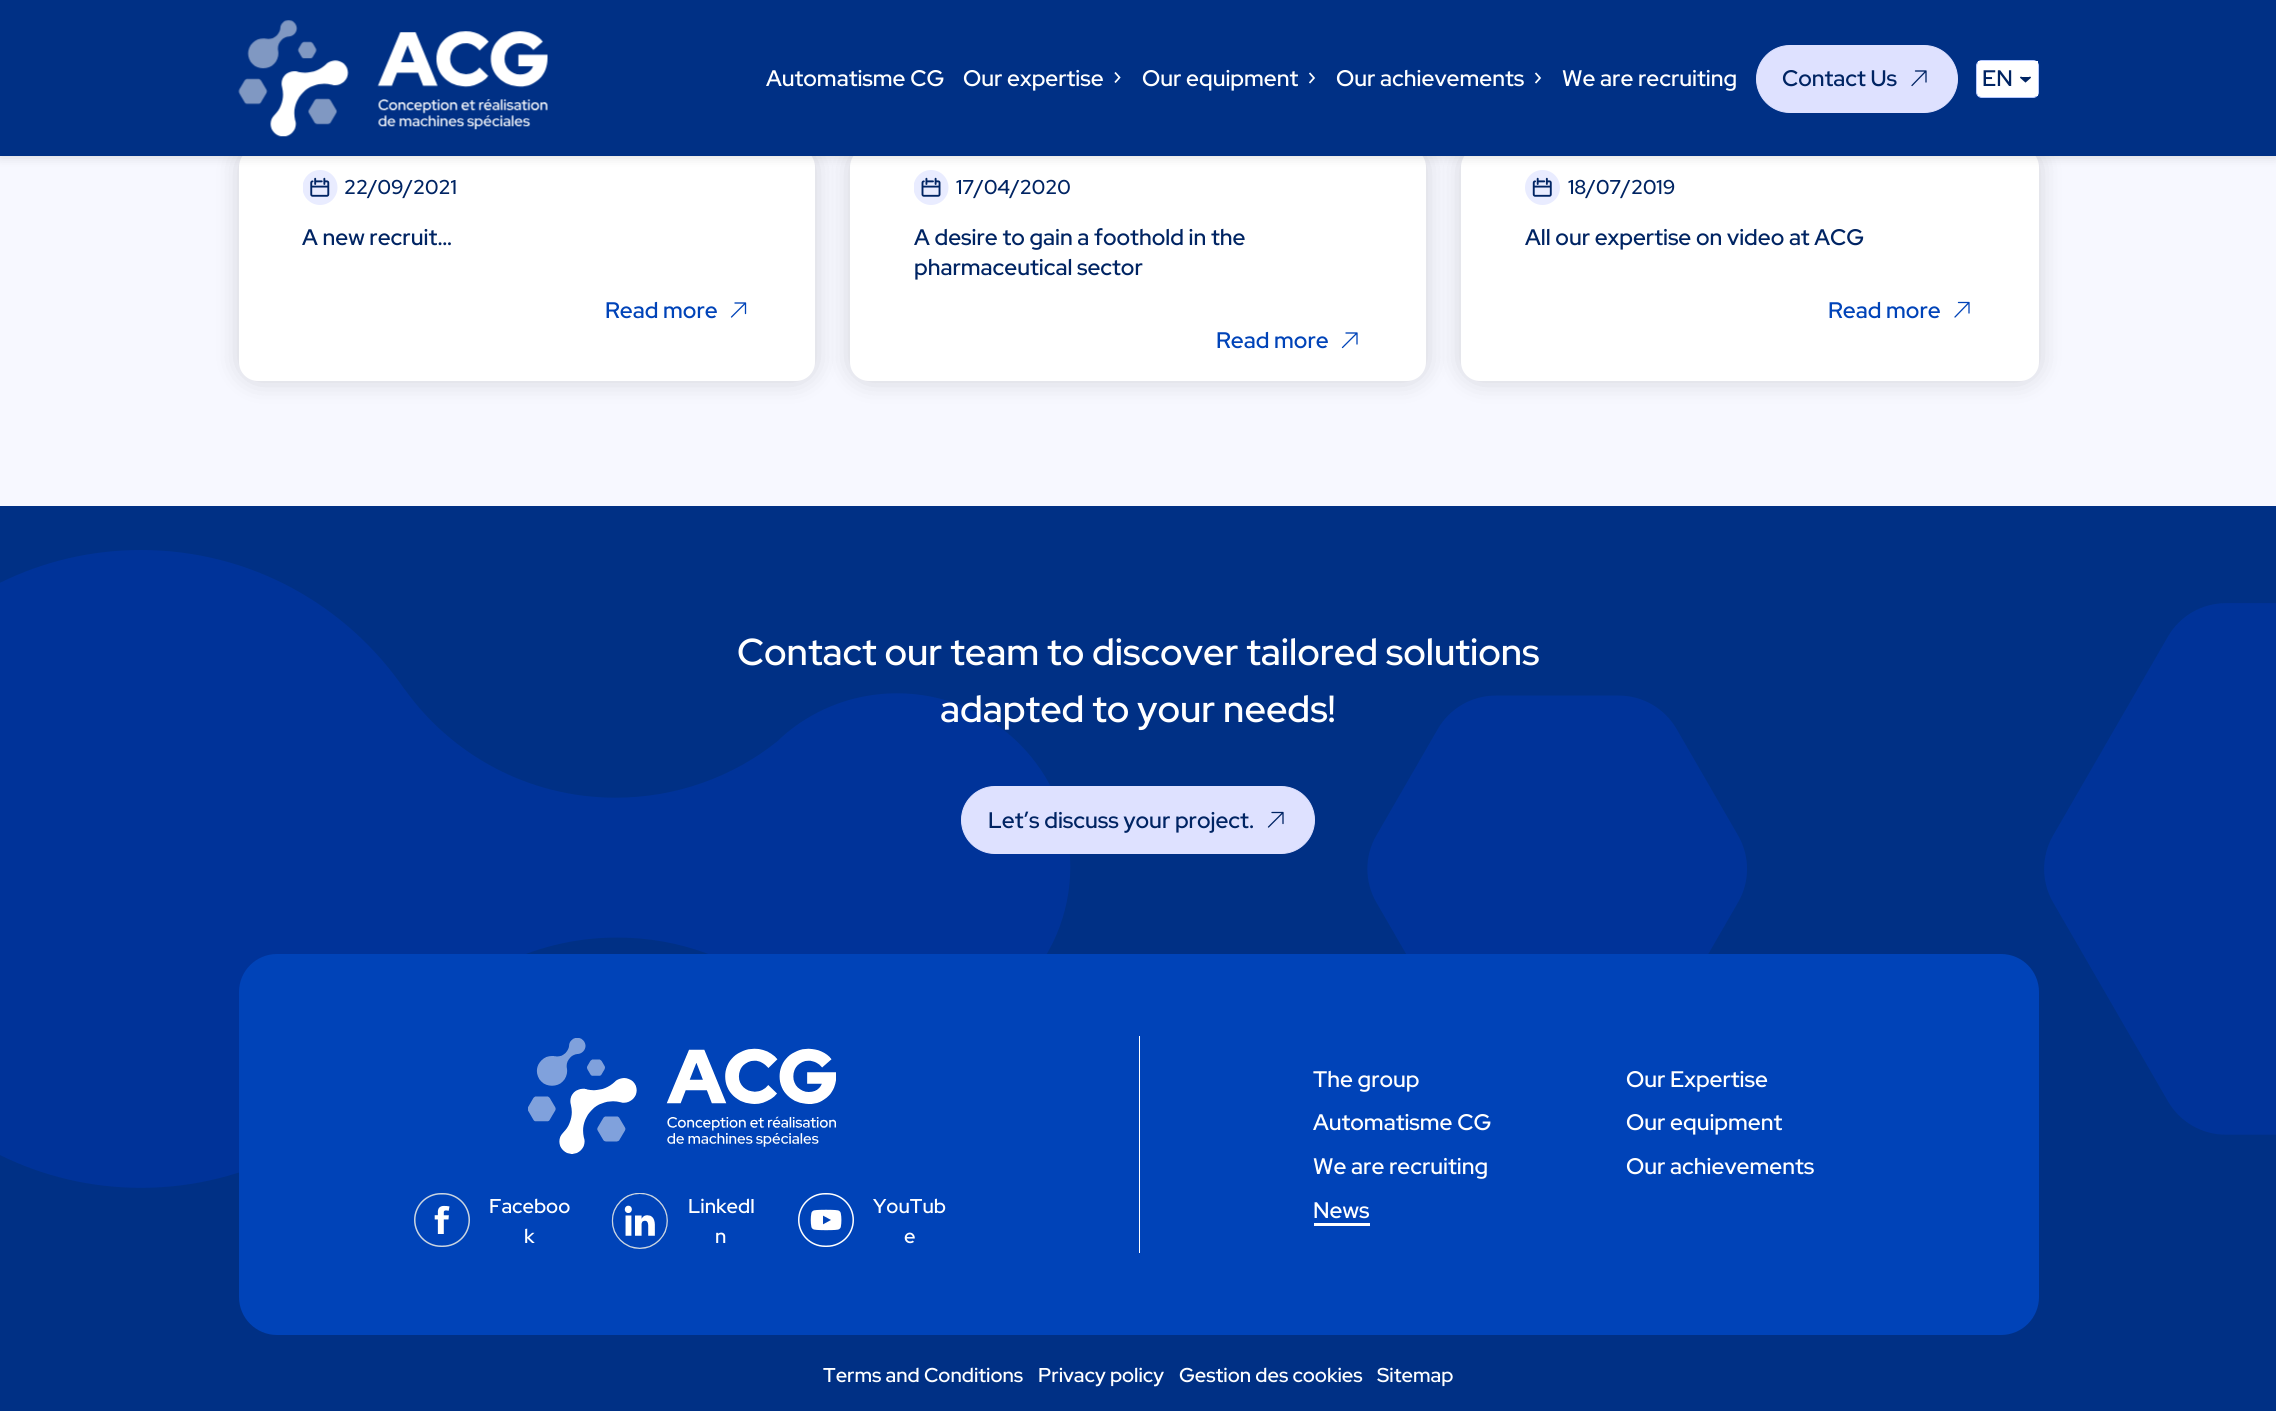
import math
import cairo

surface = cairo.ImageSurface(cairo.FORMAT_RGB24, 2276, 1411)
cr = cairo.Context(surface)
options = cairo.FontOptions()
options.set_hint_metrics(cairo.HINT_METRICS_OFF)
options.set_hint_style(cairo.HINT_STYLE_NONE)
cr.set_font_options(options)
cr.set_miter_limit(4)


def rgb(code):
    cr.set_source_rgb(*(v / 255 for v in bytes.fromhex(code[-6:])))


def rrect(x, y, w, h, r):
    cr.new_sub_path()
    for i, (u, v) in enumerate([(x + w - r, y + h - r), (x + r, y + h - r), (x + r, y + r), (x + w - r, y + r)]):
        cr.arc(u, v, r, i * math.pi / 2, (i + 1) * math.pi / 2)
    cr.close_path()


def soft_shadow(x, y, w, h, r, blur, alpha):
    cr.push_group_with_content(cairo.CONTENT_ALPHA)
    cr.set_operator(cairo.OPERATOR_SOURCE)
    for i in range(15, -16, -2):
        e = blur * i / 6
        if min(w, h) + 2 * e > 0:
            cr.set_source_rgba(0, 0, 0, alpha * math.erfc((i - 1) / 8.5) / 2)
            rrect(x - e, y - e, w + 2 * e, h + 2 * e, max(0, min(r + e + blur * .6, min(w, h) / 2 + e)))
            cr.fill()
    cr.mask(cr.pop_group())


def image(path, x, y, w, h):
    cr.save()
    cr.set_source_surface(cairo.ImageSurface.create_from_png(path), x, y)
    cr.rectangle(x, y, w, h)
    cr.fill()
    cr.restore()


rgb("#f7f8ff")
cr.paint()
rgb("#000000")
soft_shadow(239, 148, 576, 233, 19, 12.5, 0.15)
rgb("#ffffff")
rrect(239, 148, 576, 233, 19)
cr.fill()
image("img/3.png", 303, 170, 35, 35)
rgb("#000000")
soft_shadow(850, 148, 576, 233, 19, 12.5, 0.15)
rgb("#ffffff")
rrect(850, 148, 576, 233, 19)
cr.fill()
image("img/4.png", 914, 170, 35, 35)
rgb("#000000")
soft_shadow(1461, 148, 578, 233, 19, 12.5, 0.15)
rgb("#ffffff")
rrect(1461, 148, 578, 233, 19)
cr.fill()
image("img/5.png", 1525, 170, 35, 35)
rgb("#000000")
soft_shadow(0, 0, 2276, 156, 0, 6, 0.15)
rgb("#003085")
cr.rectangle(0, 0, 2276, 156)
cr.fill()
image("img/1.png", 238, 20, 310, 117)
cr.new_path()
cr.move_to(1115, 82.5)
cr.line_to(1119.5, 77.5)
cr.line_to(1115, 72.5)
rgb("#ffffff")
cr.set_line_width(1.7)
cr.stroke()
cr.new_path()
cr.move_to(1309.5, 83)
cr.line_to(1314, 78)
cr.line_to(1309.5, 73)
cr.stroke()
cr.new_path()
cr.move_to(1535.5, 83)
cr.line_to(1540, 78)
cr.line_to(1535.5, 73)
cr.stroke()
rgb("#dee1ff")
rrect(1756.5, 45.5, 201, 67, 33.5)
cr.fill_preserve()
cr.set_line_width(1)
cr.stroke()
cr.save()
cr.new_path()
cr.move_to(1900.5, 78)
cr.line_to(1918.5, 60.5)
cr.line_to(1936, 78)
cr.line_to(1918.5, 96)
cr.close_path()
cr.clip()
cr.new_path()
cr.move_to(1926, 71)
cr.line_to(1912, 85.5)
cr.move_to(1926, 71)
cr.line_to(1926, 82)
cr.move_to(1926, 71)
cr.line_to(1915.5, 71)
cr.move_to(1944, 89)
cr.line_to(1929.5, 103)
cr.move_to(1944, 89)
cr.line_to(1944, 99.5)
cr.move_to(1944, 89)
cr.line_to(1933, 89)
rgb("#002463")
cr.set_line_width(1.3)
cr.set_line_cap(cairo.LINE_CAP_ROUND)
cr.set_line_join(cairo.LINE_JOIN_ROUND)
cr.stroke()
cr.restore()
rgb("#ffffff")
rrect(1976.5, 60.5, 62, 37, 5.5)
cr.fill_preserve()
rgb("#b6c9ff")
cr.stroke()
rgb("#ffffff")
cr.rectangle(1978, 61, 60, 35)
cr.fill()
image("img/2.png", 2020, 76, 11, 7)
cr.new_path()
cr.move_to(745.5, 303)
cr.line_to(731.5, 317)
cr.move_to(745.5, 303)
cr.line_to(745.5, 313.5)
cr.move_to(745.5, 303)
cr.line_to(735, 303)
rgb("#0043b8")
cr.set_line_width(1.3)
cr.set_line_cap(cairo.LINE_CAP_ROUND)
cr.set_line_join(cairo.LINE_JOIN_ROUND)
cr.stroke()
cr.new_path()
cr.move_to(1357, 333)
cr.line_to(1342.5, 347.5)
cr.move_to(1357, 333)
cr.line_to(1357, 344)
cr.move_to(1357, 333)
cr.line_to(1346, 333)
cr.stroke()
cr.new_path()
cr.move_to(1969, 302.5)
cr.line_to(1955, 317)
cr.move_to(1969, 302.5)
cr.line_to(1969, 313)
cr.move_to(1969, 302.5)
cr.line_to(1958.5, 302.5)
cr.stroke()
rgb("#003085")
cr.rectangle(0, 506, 2276, 905)
cr.fill()
image("img/6.png", 0, 550, 2276, 638)
rgb("#dee1ff")
rrect(961.5, 786.5, 353, 67, 33.5)
cr.fill_preserve()
cr.set_line_width(1)
cr.set_line_cap(cairo.LINE_CAP_BUTT)
cr.set_line_join(cairo.LINE_JOIN_MITER)
cr.stroke()
cr.new_path()
cr.move_to(1283, 812.5)
cr.line_to(1268.5, 827)
cr.move_to(1283, 812.5)
cr.line_to(1283, 823.5)
cr.move_to(1283, 812.5)
cr.line_to(1272, 812.5)
rgb("#002463")
cr.set_line_width(1.3)
cr.set_line_cap(cairo.LINE_CAP_ROUND)
cr.set_line_join(cairo.LINE_JOIN_ROUND)
cr.stroke()
rgb("#0043b8")
rrect(239, 954, 1800, 381, 38)
cr.fill()
image("img/7.png", 528, 1038, 308, 116)
image("img/8.png", 414, 1193, 56, 54)
image("img/9.png", 611, 1193, 57, 56)
image("img/10.png", 798, 1193, 56, 54)
rgb("#ffffff")
cr.rectangle(1139, 1036, 1, 217)
cr.fill()
cr.rectangle(1314, 1223, 56, 3)
cr.fill()
cr.select_font_face("Red Hat Display SemiBold")
cr.set_font_size(22.5)
for x, y, s in [
    (766, 86, "Automatisme CG"),
    (963, 86, "Our expertise"),
    (1142, 86, "Our equipment"),
    (1336, 86, "Our achievements"),
    (1562, 86, "We are recruiting"),
]:
    cr.move_to(x, y)
    cr.show_text(s)
rgb("#002463")
cr.move_to(1782, 86)
cr.show_text("Contact Us")
cr.move_to(1982, 86)
cr.show_text("EN")
cr.set_font_size(20)
cr.move_to(344, 194)
cr.show_text("22/09/2021")
cr.set_font_size(22.5)
cr.move_to(302, 245)
cr.show_text("A new recruit…")
rgb("#0043b8")
cr.move_to(605, 318)
cr.show_text("Read more")
cr.set_font_size(20)
rgb("#002463")
cr.move_to(956, 194)
cr.show_text("17/04/2020")
cr.set_font_size(22.5)
cr.move_to(914, 245)
cr.show_text("A desire to gain a foothold in the")
cr.move_to(914, 275)
cr.show_text("pharmaceutical sector")
rgb("#0043b8")
cr.move_to(1216, 348)
cr.show_text("Read more")
cr.set_font_size(20)
rgb("#002463")
cr.move_to(1568, 194)
cr.show_text("18/07/2019")
cr.set_font_size(22.5)
cr.move_to(1525, 245)
cr.show_text("All our expertise on video at ACG")
rgb("#0043b8")
cr.move_to(1828, 318)
cr.show_text("Read more")
cr.set_font_size(37.5)
rgb("#ffffff")
cr.move_to(737, 665)
cr.show_text("Contact our team to discover tailored solutions")
cr.move_to(940, 722)
cr.show_text("adapted to your needs!")
cr.set_font_size(22.5)
rgb("#002463")
cr.move_to(988, 828)
cr.show_text("Let’s discuss your project.")
cr.set_font_size(20)
rgb("#ffffff")
for x, y, s in [
    (489, 1213, "Faceboo"),
    (524, 1243, "k"),
    (688, 1213, "LinkedI"),
    (715, 1243, "n"),
    (873, 1213, "YouTub"),
    (904, 1243, "e"),
]:
    cr.move_to(x, y)
    cr.show_text(s)
cr.set_font_size(22.5)
for x, y, s in [
    (1313, 1087, "The group"),
    (1313, 1130, "Automatisme CG"),
    (1313, 1174, "We are recruiting"),
    (1313, 1218, "News"),
    (1626, 1087, "Our Expertise"),
    (1626, 1130, "Our equipment"),
    (1626, 1174, "Our achievements"),
]:
    cr.move_to(x, y)
    cr.show_text(s)
cr.set_font_size(20)
for x, y, s in [
    (823, 1382, "Terms and Conditions"),
    (1038, 1382, "Privacy policy"),
    (1179, 1382, "Gestion des cookies"),
    (1377, 1382, "Sitemap"),
]:
    cr.move_to(x, y)
    cr.show_text(s)
surface.write_to_png("page.png")
